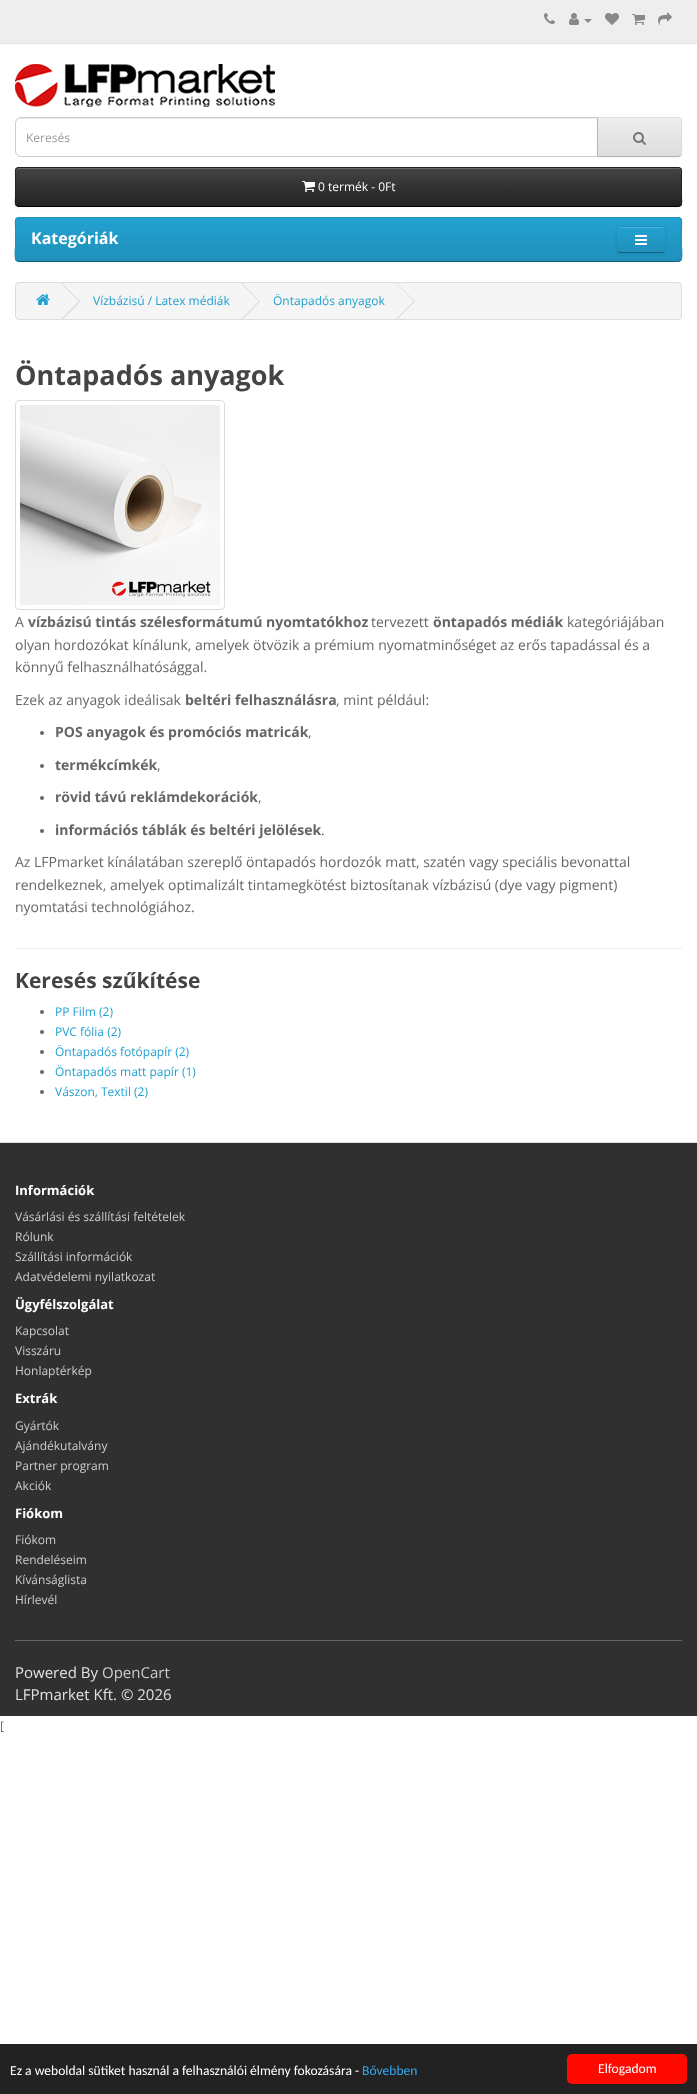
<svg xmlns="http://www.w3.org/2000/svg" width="697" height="2094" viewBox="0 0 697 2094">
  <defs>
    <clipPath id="clip1"><path d="M597 117H678C680 117 682 119 682 121V153C682 155 680 157 678 157H597Z"/></clipPath>
    <linearGradient id="g1" gradientUnits="userSpaceOnUse" x1="640" y1="118" x2="640" y2="156"><stop offset="0" stop-color="rgb(238,238,238)"/><stop offset="1" stop-color="rgb(221,221,221)"/></linearGradient>
    <clipPath id="clip2"><rect x="15" y="167" width="667" height="40" rx="4"/></clipPath>
    <linearGradient id="g2" gradientUnits="userSpaceOnUse" x1="349" y1="168" x2="349" y2="206"><stop offset="0" stop-color="rgb(68,68,68)"/><stop offset="1" stop-color="rgb(34,34,34)"/></linearGradient>
    <clipPath id="clip3"><rect x="15" y="217" width="667" height="45" rx="4"/></clipPath>
    <linearGradient id="g3" gradientUnits="userSpaceOnUse" x1="349" y1="218" x2="349" y2="261"><stop offset="0" stop-color="rgb(35,161,209)"/><stop offset="1" stop-color="rgb(31,144,187)"/></linearGradient>
    <clipPath id="clip4"><rect x="616" y="226" width="50" height="27" rx="4"/></clipPath>
    <linearGradient id="g4" gradientUnits="userSpaceOnUse" x1="641" y1="227" x2="641" y2="252"><stop offset="0" stop-color="rgb(35,161,209)"/><stop offset="1" stop-color="rgb(31,144,187)"/></linearGradient>
  </defs>
  <rect width="100%" height="100%" fill="rgb(255,255,255)"/>
  <rect x="0" y="0" width="697" height="43" fill="rgb(238,238,238)"/>
  <rect x="0" y="43" width="697" height="1" fill="rgb(226,226,226)"/>
  <image x="544" y="13" width="11" height="11" href="pic1.png"/>
  <image x="569" y="13" width="10" height="12" href="pic2.png"/>
  <path d="M584 19H592L588 23Z" fill="rgb(136,136,136)"/>
  <image x="605" y="13" width="14" height="12" href="pic3.png"/>
  <image x="632" y="14" width="13" height="11" href="pic4.png"/>
  <image x="658" y="12" width="14" height="13" href="pic5.png"/>
  <image x="15" y="64" width="260" height="43" href="pic6.png"/>
  <path d="M21 119H597V118H21C18 118 16 121 16 124C16 121 18 119 21 119Z" fill="rgb(236,236,236)"/>
  <path d="M21 117.5H597.5V156.5H21C18 156.5 15.5 154 15.5 151V123C15.5 120 18 117.5 21 117.5Z" fill="none" stroke="rgb(204,204,204)"/>
  <text x="26" y="142" font-family="Open Sans" font-size="12" fill="rgb(153,153,153)">Keresés</text>
  <rect x="597" y="118" width="85" height="40" rx="4" fill="rgba(0,0,0,0.05)" filter="blur(1px)"/>
  <path d="M597 117H678C680 117 682 119 682 121V153C682 155 680 157 678 157H597Z" fill="rgb(231,231,231)"/>
  <g clip-path="url(#clip1)">
    <rect x="598" y="118" width="84" height="38" fill="url(#g1)"/>
  </g>
  <path d="M598 119H678C680 119 681 120 681 122V121C681 119 680 118 678 118H598Z" fill="rgb(241,241,241)"/>
  <path d="M597 117L598 118H679L680 119L681 118L678 117Z" fill="rgb(221,221,221)"/>
  <path d="M682 153V121C682 120 681.5 119 681 118L680 119C681 119 681 120 681 121V153C681 154 681 155 680 155L681 156C681.5 155 682 154 682 153Z" fill="rgb(221,221,221)"/>
  <path d="M678 157L681 156L680 155L679 156H598L597 157Z" fill="rgb(179,179,179)"/>
  <path d="M597 117V157L598 156V118Z" fill="rgb(183,183,183)"/>
  <image x="633" y="132" width="13" height="13" href="pic7.png"/>
  <rect x="15" y="168" width="667" height="40" rx="4" fill="rgba(0,0,0,0.05)" filter="blur(1px)"/>
  <rect x="15" y="167" width="667" height="40" rx="4" fill="rgb(54,54,54)"/>
  <g clip-path="url(#clip2)">
    <rect x="15" y="168" width="667" height="38" fill="url(#g2)"/>
  </g>
  <path d="M19 169H678C680 169 681 170 681 172V171C681 169 680 168 678 168H19C17 168 16 169 16 171V172C16 170 17 169 19 169Z" fill="rgb(105,105,105)"/>
  <path d="M680.5 205.5L678 206.5H19L16.5 205.5" fill="none" stroke="rgb(0,0,0)"/>
  <path d="M16.5 205.5C14.5 203.5 15.5 199.5 15.5 197.5V170.5C15.5 169 17 167.5 18.5 167.5H678.5C680 167.5 681.5 169 681.5 170.5V197.5C681.5 199.5 682.5 203.5 680.5 205.5" fill="none" stroke="rgb(34,34,34)"/>
  <image x="302" y="181" width="13" height="11" href="pic8.png"/>
  <text x="318" y="191" font-family="Open Sans" font-size="12" fill="rgb(255,255,255)">0 termék - 0Ft</text>
  <rect x="15" y="217" width="667" height="45" rx="4" fill="rgb(34,154,200)"/>
  <g clip-path="url(#clip3)">
    <rect x="15" y="218" width="667" height="43" fill="url(#g3)"/>
  </g>
  <path d="M680.5 260.5L678 261.5H19L16.5 260.5" fill="none" stroke="rgb(20,94,122)"/>
  <path d="M16.5 260.5C14 258 15.5 248.5 15.5 245.5V227C15.5 224.5 14 218 18.5 217.5H678.5C683 218 681.5 224.5 681.5 227V245.5C681.5 248.5 683 258 680.5 260.5" fill="none" stroke="rgb(31,144,187)"/>
  <text x="31" y="244" font-family="Open Sans" font-size="16" font-weight="bold" fill="rgb(255,255,255)">Kategóriák</text>
  <rect x="616" y="227" width="50" height="27" rx="4" fill="rgba(0,0,0,0.05)" filter="blur(1px)"/>
  <rect x="616" y="226" width="50" height="27" rx="4" fill="rgb(34,154,200)"/>
  <g clip-path="url(#clip4)">
    <rect x="616" y="227" width="50" height="25" fill="url(#g4)"/>
  </g>
  <path d="M620 228H662C664 228 665 229 665 231C665 225 659 227 655 227H627C623 227 617 225 617 231C617 229 618 228 620 228Z" fill="rgb(79,180,218)"/>
  <path d="M664.5 251.5C664 252 663 252.5 662 252.5H620C619 252.5 618 252 617.5 251.5" fill="none" stroke="rgb(20,94,122)"/>
  <path d="M617.5 251.5C615.5 249.5 616.5 242 616.5 239.5C616.5 226.5 614.5 226.5 627 226.5H655C667.5 226.5 665.5 226.5 665.5 239.5C665.5 242 666.5 249.5 664.5 251.5" fill="none" stroke="rgb(31,144,187)"/>
  <image x="635" y="235" width="12" height="10" href="pic9.png"/>
  <rect x="15.5" y="282.5" width="666" height="37" rx="3.5" fill="rgb(245,245,245)" stroke="rgb(221,221,221)"/>
  <image x="36" y="294" width="14" height="11" href="pic10.png"/>
  <path d="M61 283.5L62 283L80.5 301.5L79.5 302Z" fill="rgb(221,221,221)"/>
  <path d="M61 319L79.5 300.5L80.5 301.5L62 320Z" fill="rgb(221,221,221)"/>
  <text x="93" y="305" font-family="Open Sans" font-size="12" fill="rgb(35,161,209)">Vízbázisú / Latex médiák</text>
  <path d="M241 283.5L242 283L260 301.5L259.5 302Z" fill="rgb(221,221,221)"/>
  <path d="M241 319L259.5 300.5L260 301.5L242 320Z" fill="rgb(221,221,221)"/>
  <text x="273" y="305" font-family="Open Sans" font-size="12" fill="rgb(35,161,209)">Öntapadós anyagok</text>
  <path d="M396 283.5L396.5 283L415 301.5L414.5 302Z" fill="rgb(221,221,221)"/>
  <path d="M396 319L414.5 300.5L415 301.5L396.5 320Z" fill="rgb(221,221,221)"/>
  <text x="15" y="385" font-family="Open Sans" font-size="27" font-weight="bold" fill="rgb(68,68,68)">Öntapadós anyagok</text>
  <rect x="15.5" y="400.5" width="209" height="209" rx="3.5" fill="none" stroke="rgb(221,221,221)"/>
  <image x="20" y="405" width="200" height="200" href="pic11.png"/>
  <text x="15" y="627" font-family="Open Sans" font-size="14" fill="rgb(102,102,102)">A</text>
  <text x="28" y="627" font-family="Open Sans" font-size="14" font-weight="bold" fill="rgb(102,102,102)">vízbázisú tintás szélesformátumú nyomtatókhoz</text>
  <text x="371" y="627" font-family="Open Sans" font-size="14" fill="rgb(102,102,102)">tervezett</text>
  <text x="433" y="627" font-family="Open Sans" font-size="14" font-weight="bold" fill="rgb(102,102,102)">öntapadós médiák</text>
  <g font-family="Open Sans" font-size="14" fill="rgb(102,102,102)">
    <text x="567" y="627">kategóriájában</text>
    <text>
      <tspan x="15" y="650">olyan hordozókat kínálunk, amelyek ötvözik a prémium nyomatminőséget az erős tapadással és a</tspan>
      <tspan x="15" y="672">könnyű felhasználhatósággal.</tspan>
    </text>
    <text x="15" y="705">Ezek az anyagok ideálisak</text>
  </g>
  <text x="185" y="705" font-family="Open Sans" font-size="14" font-weight="bold" fill="rgb(102,102,102)">beltéri felhasználásra</text>
  <text x="336" y="705" font-family="Open Sans" font-size="14" fill="rgb(102,102,102)">, mint például:</text>
  <circle cx="42" cy="733" r="2" fill="rgb(102,102,102)"/>
  <text x="55" y="737" font-family="Open Sans" font-size="14" font-weight="bold" fill="rgb(102,102,102)">POS anyagok és promóciós matricák</text>
  <text x="308" y="737" font-family="Open Sans" font-size="14" fill="rgb(102,102,102)">,</text>
  <circle cx="42" cy="766" r="2" fill="rgb(102,102,102)"/>
  <text x="55" y="770" font-family="Open Sans" font-size="14" font-weight="bold" fill="rgb(102,102,102)">termékcímkék</text>
  <text x="157" y="770" font-family="Open Sans" font-size="14" fill="rgb(102,102,102)">,</text>
  <circle cx="42" cy="798" r="2" fill="rgb(102,102,102)"/>
  <text x="55" y="802" font-family="Open Sans" font-size="14" font-weight="bold" fill="rgb(102,102,102)">rövid távú reklámdekorációk</text>
  <text x="258" y="802" font-family="Open Sans" font-size="14" fill="rgb(102,102,102)">,</text>
  <circle cx="42" cy="831" r="2" fill="rgb(102,102,102)"/>
  <text x="55" y="835" font-family="Open Sans" font-size="14" font-weight="bold" fill="rgb(102,102,102)">információs táblák és beltéri jelölések</text>
  <g font-family="Open Sans" font-size="14" fill="rgb(102,102,102)">
    <text x="321" y="835">.</text>
    <text>
      <tspan x="15" y="867">Az LFPmarket kínálatában szereplő öntapadós hordozók matt, szatén vagy speciális bevonattal</tspan>
      <tspan x="15" y="890">rendelkeznek, amelyek optimalizált tintamegkötést biztosítanak vízbázisú (dye vagy pigment)</tspan>
      <tspan x="15" y="912">nyomtatási technológiához.</tspan>
    </text>
  </g>
  <rect x="15" y="948" width="667" height="1" fill="rgb(238,238,238)"/>
  <text x="15" y="988" font-family="Open Sans" font-size="21" font-weight="bold" fill="rgb(68,68,68)">Keresés szűkítése</text>
  <circle cx="42" cy="1012" r="2" fill="rgb(102,102,102)"/>
  <text x="55" y="1016" font-family="Open Sans" font-size="12" fill="rgb(35,161,209)">PP Film (2)</text>
  <circle cx="42" cy="1032" r="2" fill="rgb(102,102,102)"/>
  <text x="55" y="1036" font-family="Open Sans" font-size="12" fill="rgb(35,161,209)">PVC fólia (2)</text>
  <circle cx="42" cy="1052" r="2" fill="rgb(102,102,102)"/>
  <text x="55" y="1056" font-family="Open Sans" font-size="12" fill="rgb(35,161,209)">Öntapadós fotópapír (2)</text>
  <circle cx="42" cy="1072" r="2" fill="rgb(102,102,102)"/>
  <text x="55" y="1076" font-family="Open Sans" font-size="12" fill="rgb(35,161,209)">Öntapadós matt papír (1)</text>
  <circle cx="42" cy="1092" r="2" fill="rgb(102,102,102)"/>
  <text x="55" y="1096" font-family="Open Sans" font-size="12" fill="rgb(35,161,209)">Vászon, Textil (2)</text>
  <rect x="0" y="1143" width="697" height="573" fill="rgb(48,48,48)"/>
  <rect x="0" y="1142" width="697" height="1" fill="rgb(221,221,221)"/>
  <text x="15" y="1195" font-family="Open Sans" font-size="13" font-weight="bold" fill="rgb(255,255,255)">Információk</text>
  <g font-family="Open Sans" font-size="12" fill="rgb(204,204,204)">
    <text>
      <tspan x="15" y="1221">Vásárlási és szállítási feltételek</tspan>
      <tspan x="15" y="1241">Rólunk</tspan>
      <tspan x="15" y="1261">Szállítási információk</tspan>
      <tspan x="15" y="1281">Adatvédelemi nyilatkozat</tspan>
    </text>
  </g>
  <text x="15" y="1309" font-family="Open Sans" font-size="13" font-weight="bold" fill="rgb(255,255,255)">Ügyfélszolgálat</text>
  <g font-family="Open Sans" font-size="12" fill="rgb(204,204,204)">
    <text>
      <tspan x="15" y="1335">Kapcsolat</tspan>
      <tspan x="15" y="1355">Visszáru</tspan>
      <tspan x="15" y="1375">Honlaptérkép</tspan>
    </text>
  </g>
  <text x="15" y="1403" font-family="Open Sans" font-size="13" font-weight="bold" fill="rgb(255,255,255)">Extrák</text>
  <g font-family="Open Sans" font-size="12" fill="rgb(204,204,204)">
    <text>
      <tspan x="15" y="1430">Gyártók</tspan>
      <tspan x="15" y="1450">Ajándékutalvány</tspan>
      <tspan x="15" y="1470">Partner program</tspan>
      <tspan x="15" y="1490">Akciók</tspan>
    </text>
  </g>
  <text x="15" y="1518" font-family="Open Sans" font-size="13" font-weight="bold" fill="rgb(255,255,255)">Fiókom</text>
  <g font-family="Open Sans" font-size="12" fill="rgb(204,204,204)">
    <text>
      <tspan x="15" y="1544">Fiókom</tspan>
      <tspan x="15" y="1564">Rendeléseim</tspan>
      <tspan x="15" y="1584">Kívánságlista</tspan>
      <tspan x="15" y="1604">Hírlevél</tspan>
    </text>
  </g>
  <rect x="15" y="1640" width="667" height="1" fill="rgb(102,102,102)"/>
  <text x="15" y="1678" font-family="Open Sans" font-size="15" fill="rgb(226,226,226)">Powered By</text>
  <text x="102" y="1678" font-family="Open Sans" font-size="15" fill="rgb(204,204,204)">OpenCart</text>
  <text x="15" y="1700" font-family="Open Sans" font-size="15" fill="rgb(226,226,226)">LFPmarket Kft. © 2026</text>
  <text x="0" y="1730" font-family="Open Sans" font-size="12" fill="rgb(102,102,102)">[</text>
  <rect x="0" y="2044" width="697" height="50" fill="rgb(34,34,34)"/>
  <text x="10" y="2075" font-family="Carlito" font-size="13.6" fill="rgb(255,255,255)">Ez a weboldal sütiket használ a felhasználói élmény fokozására -</text>
  <text x="362" y="2075" font-family="Carlito" font-size="13.6" fill="rgb(49,168,240)">Bővebben</text>
  <rect x="567" y="2054" width="120" height="30" rx="5" fill="rgb(255,10,0)"/>
  <text x="598" y="2073" font-family="Carlito" font-size="13.6" fill="rgb(255,255,255)">Elfogadom</text>
</svg>
